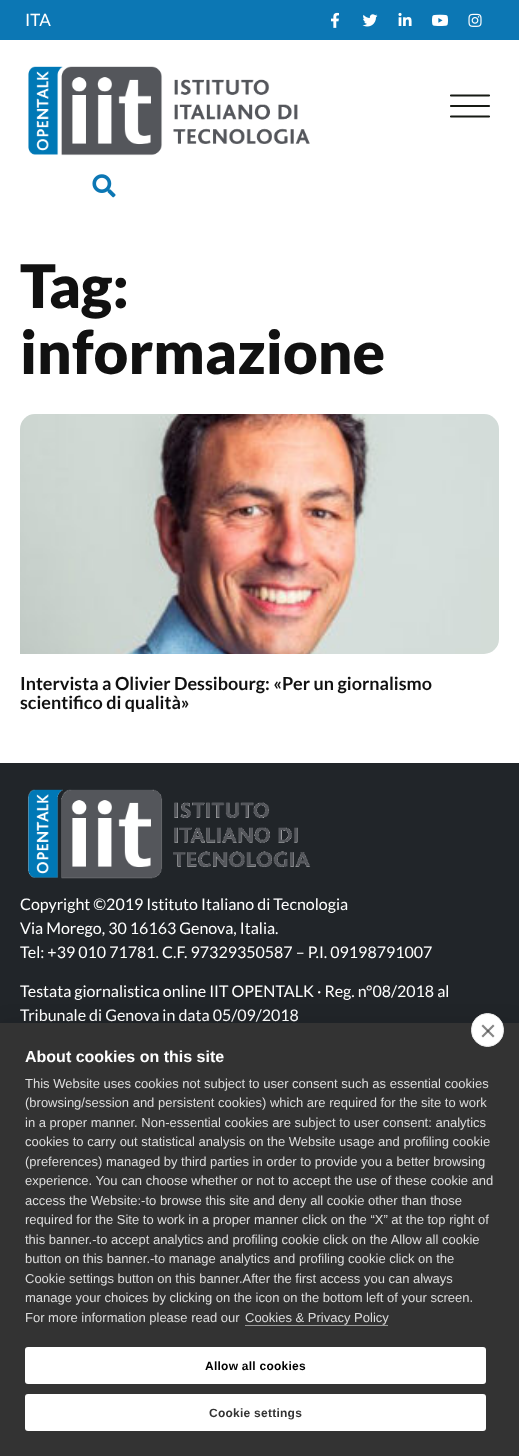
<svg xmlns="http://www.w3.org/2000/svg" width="519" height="1456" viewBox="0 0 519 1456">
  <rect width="100%" height="100%" fill="rgb(255,255,255)"/>
  <rect x="0" y="0" width="519" height="40" fill="rgb(12,119,180)"/>
  <text x="25" y="26" font-family="Lato" font-size="17" fill="rgb(255,255,255)">ITA</text>
  <image x="331" y="12" width="8" height="16" href="pic1.png"/>
  <image x="362" y="14" width="16" height="13" href="pic2.png"/>
  <image x="398" y="12" width="14" height="14" href="pic3.png"/>
  <image x="432" y="14" width="16" height="12" href="pic4.png"/>
  <image x="468" y="13" width="14" height="14" href="pic5.png"/>
  <image x="28" y="66" width="282" height="90" href="pic6.png"/>
  <path d="M489 95.5H451M489 106H451M489 116.5H451" fill="none" stroke="rgb(22,26,20)" stroke-width="2.2" stroke-linecap="round"/>
  <image x="92" y="174" width="24" height="24" href="pic7.png"/>
  <g font-family="Lato" font-size="60" font-weight="900" fill="rgb(17,17,17)">
    <text>
      <tspan x="20" y="308">Tag:</tspan>
      <tspan x="20" y="374">informazione</tspan>
    </text>
  </g>
  <image x="20" y="414" width="479" height="240" href="pic8.png"/>
  <g font-family="Lato" font-size="18" font-weight="bold" fill="rgb(17,17,17)">
    <text>
      <tspan x="20" y="690">Intervista a Olivier Dessibourg: «Per un giornalismo</tspan>
      <tspan x="20" y="709">scientifico di qualità»</tspan>
    </text>
  </g>
  <rect x="0" y="763" width="519" height="260" fill="rgb(33,37,41)"/>
  <image x="28" y="789" width="283" height="90" href="pic9.png"/>
  <g font-family="Lato" font-size="16" fill="rgb(255,255,255)">
    <text>
      <tspan x="20" y="910">Copyright ©2019 Istituto Italiano di Tecnologia</tspan>
      <tspan x="20" y="934">Via Morego, 30 16163 Genova, Italia.</tspan>
      <tspan x="20" y="958">Tel: +39 010 71781. C.F. 97329350587 – P.I. 09198791007</tspan>
    </text>
    <text>
      <tspan x="20" y="997">Testata giornalistica online IIT OPENTALK · Reg. n°08/2018 al</tspan>
      <tspan x="20" y="1021">Tribunale di Genova in data 05/09/2018</tspan>
    </text>
  </g>
  <rect x="0" y="1023" width="519" height="433" fill="rgba(0,0,0,0.1)" filter="blur(10px)"/>
  <rect x="0" y="1023" width="519" height="433" fill="rgb(51,51,51)"/>
  <rect x="471.5" y="1013.5" width="32" height="33" rx="16" fill="rgb(255,255,255)" stroke="rgb(238,238,238)"/>
  <path d="M481.5 1036L493 1024.5L494.5 1026L483 1037.5Z" fill="rgb(133,133,133)"/>
  <path d="M483 1024.5L494.5 1036L493 1037.5L481.5 1026Z" fill="rgba(51,51,51,0.6)"/>
  <text x="25" y="1062" font-family="Liberation Sans" font-size="16" font-weight="bold" fill="rgb(255,255,255)">About cookies on this site</text>
  <g font-family="Liberation Sans" font-size="13" fill="rgb(221,221,221)">
    <text>
      <tspan x="25" y="1088">This Website uses cookies not subject to user consent such as essential cookies</tspan>
      <tspan x="25" y="1107">(browsing/session and persistent cookies) which are required for the site to work</tspan>
      <tspan x="25" y="1127">in a proper manner. Non-essential cookies are subject to user consent: analytics</tspan>
      <tspan x="25" y="1146">cookies to carry out statistical analysis on the Website usage and profiling cookie</tspan>
      <tspan x="25" y="1166">(preferences) managed by third parties in order to provide you a better browsing</tspan>
      <tspan x="25" y="1185">experience. You can choose whether or not to accept the use of these cookie and</tspan>
      <tspan x="25" y="1205">access the Website:-to browse this site and deny all cookie other than those</tspan>
      <tspan x="25" y="1224">required for the Site to work in a proper manner click on the “X” at the top right of</tspan>
      <tspan x="25" y="1244">this banner.-to accept analytics and profiling cookie click on the Allow all cookie</tspan>
      <tspan x="25" y="1263">button on this banner.-to manage analytics and profiling cookie click on the</tspan>
      <tspan x="25" y="1283">Cookie settings button on this banner.After the first access you can always</tspan>
      <tspan x="25" y="1302">manage your choices by clicking on the icon on the bottom left of your screen.</tspan>
      <tspan x="25" y="1322">For more information please read our</tspan>
    </text>
    <text x="245" y="1322">Cookies &amp; Privacy Policy</text>
  </g>
  <rect x="245" y="1325" width="143" height="1" fill="rgb(153,153,153)"/>
  <rect x="25" y="1347" width="461" height="37" rx="3" fill="rgb(255,255,255)"/>
  <text x="205" y="1370" font-family="Liberation Sans" font-size="12" font-weight="bold" letter-spacing="0.25" fill="rgb(0,0,0)">Allow all cookies</text>
  <rect x="25" y="1394" width="461" height="37" rx="3" fill="rgb(255,255,255)"/>
  <text x="209" y="1417" font-family="Liberation Sans" font-size="12" font-weight="bold" letter-spacing="0.25" fill="rgb(51,51,51)">Cookie settings</text>
</svg>
